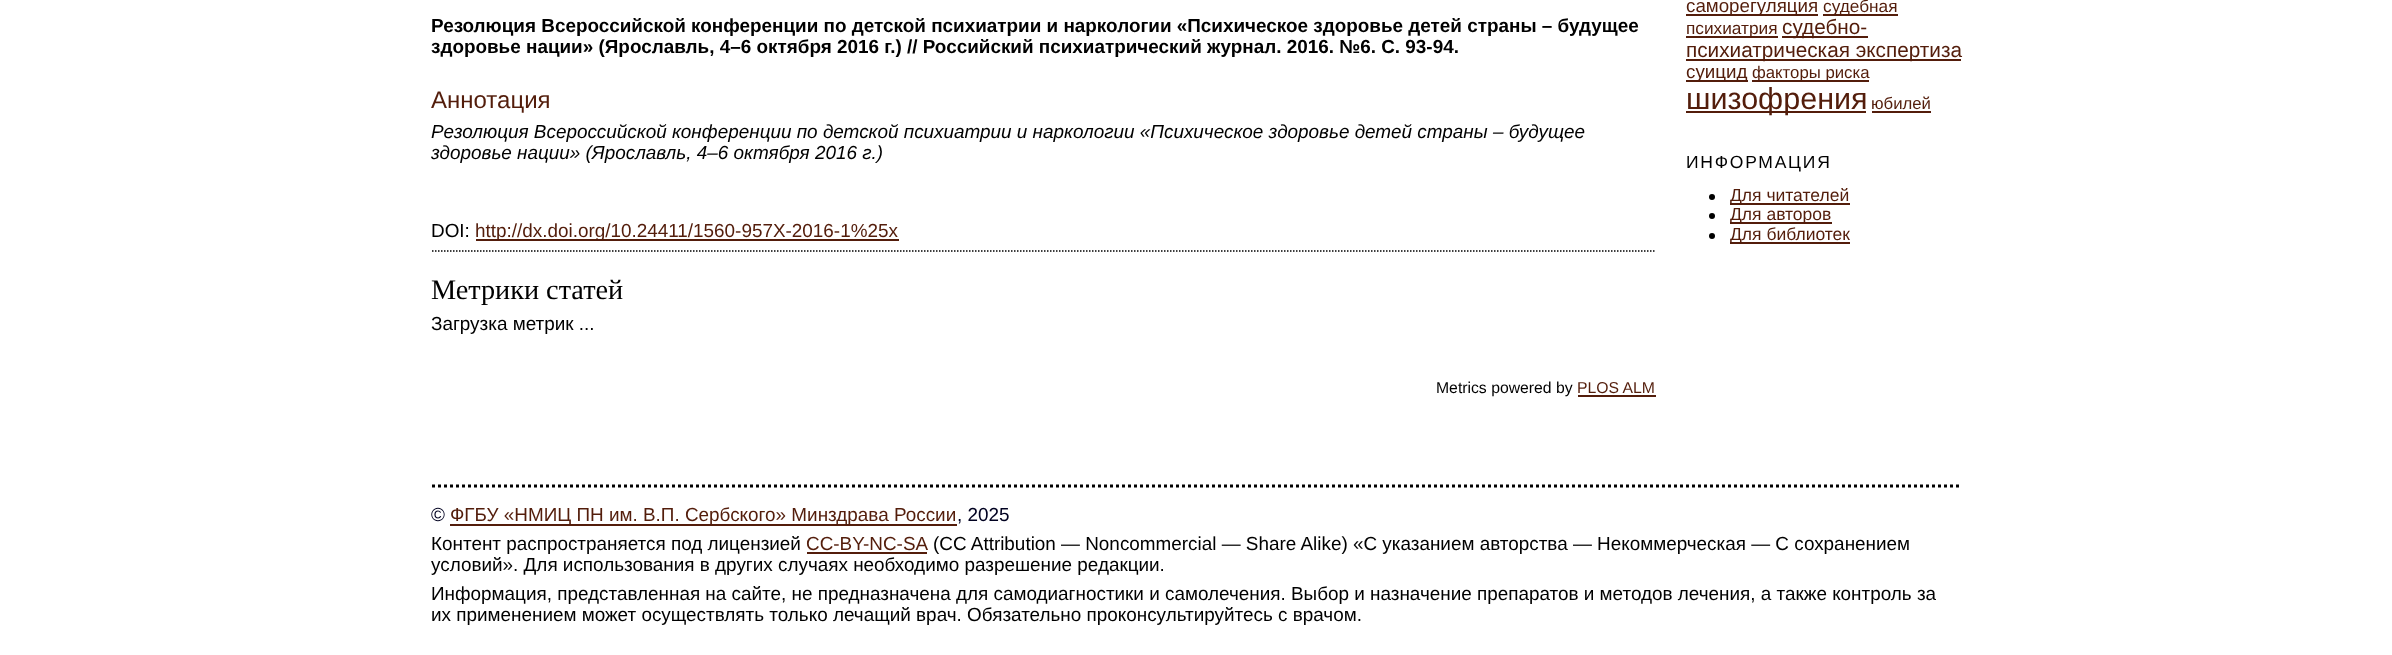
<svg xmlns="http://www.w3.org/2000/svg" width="2392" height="655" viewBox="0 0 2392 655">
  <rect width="100%" height="100%" fill="rgb(255,255,255)"/>
  <g font-family="Liberation Sans" font-size="18.9" font-weight="bold" fill="rgb(0,0,0)">
    <text>
      <tspan x="431" y="32">Резолюция Всероссийской конференции по детской психиатрии и наркологии «Психическое здоровье детей страны – будущее</tspan>
      <tspan x="431" y="53">здоровье нации» (Ярославль, 4–6 октября 2016 г.) // Российский психиатрический журнал. 2016. №6. С. 93-94.</tspan>
    </text>
  </g>
  <text x="431" y="108" font-family="Liberation Sans" font-size="24" fill="rgb(83,29,11)">Аннотация</text>
  <g font-family="Liberation Sans" font-size="18.9" font-style="italic" fill="rgb(0,0,0)">
    <text>
      <tspan x="431" y="138">Резолюция Всероссийской конференции по детской психиатрии и наркологии «Психическое здоровье детей страны – будущее</tspan>
      <tspan x="431" y="159">здоровье нации» (Ярославль, 4–6 октября 2016 г.)</tspan>
    </text>
  </g>
  <text x="431" y="237" font-family="Liberation Sans" font-size="18.9" fill="rgb(0,0,0)">DOI:</text>
  <rect x="476" y="239" width="423" height="2" fill="rgb(83,29,11)"/>
  <text x="475" y="237" font-family="Liberation Sans" font-size="18.9" fill="rgb(83,29,11)">http://dx.doi.org/10.24411/1560-957X-2016-1%25x</text>
  <path d="M432 251H1656" fill="none" stroke="rgb(0,0,0)" stroke-width="1.5" stroke-dasharray="1.5 1.5"/>
  <text x="431" y="299" font-family="Liberation Serif" font-size="28.25" fill="rgb(0,0,0)">Метрики статей</text>
  <text x="431" y="330" font-family="Liberation Sans" font-size="18.9" fill="rgb(0,0,0)">Загрузка метрик ...</text>
  <text x="1436" y="393" font-family="Liberation Sans" font-size="15.75" fill="rgb(0,0,0)">Metrics powered by</text>
  <text x="1577" y="393" font-family="Liberation Sans" font-size="15.75" fill="rgb(83,29,11)">PLOS ALM</text>
  <rect x="1578" y="395" width="78" height="2" fill="rgb(83,29,11)"/>
  <rect x="1686" y="14" width="132" height="2" fill="rgb(83,29,11)"/>
  <text x="1686" y="12" font-family="Liberation Sans" font-size="18.75" fill="rgb(83,29,11)">саморегуляция</text>
  <rect x="1823" y="14" width="75" height="2" fill="rgb(83,29,11)"/>
  <text x="1823" y="12" font-family="Liberation Sans" font-size="17.25" fill="rgb(83,29,11)">судебная</text>
  <rect x="1686" y="36" width="92" height="2" fill="rgb(83,29,11)"/>
  <text x="1686" y="34" font-family="Liberation Sans" font-size="17.25" fill="rgb(83,29,11)">психиатрия</text>
  <rect x="1782" y="36" width="86" height="2" fill="rgb(83,29,11)"/>
  <text x="1782" y="34" font-family="Liberation Sans" font-size="20.75" fill="rgb(83,29,11)">судебно-</text>
  <rect x="1686" y="59" width="275" height="2" fill="rgb(83,29,11)"/>
  <text x="1686" y="57" font-family="Liberation Sans" font-size="20.75" fill="rgb(83,29,11)">психиатрическая экспертиза</text>
  <rect x="1686" y="80" width="62" height="2" fill="rgb(83,29,11)"/>
  <text x="1686" y="78" font-family="Liberation Sans" font-size="18.75" fill="rgb(83,29,11)">суицид</text>
  <rect x="1752" y="80" width="117" height="2" fill="rgb(83,29,11)"/>
  <text x="1752" y="78" font-family="Liberation Sans" font-size="16.75" fill="rgb(83,29,11)">факторы риска</text>
  <rect x="1686" y="111" width="180" height="2" fill="rgb(83,29,11)"/>
  <text x="1686" y="109" font-family="Liberation Sans" font-size="30.5" fill="rgb(83,29,11)">шизофрения</text>
  <text x="1871" y="109" font-family="Liberation Sans" font-size="16.75" fill="rgb(83,29,11)">юбилей</text>
  <rect x="1872" y="111" width="59" height="2" fill="rgb(83,29,11)"/>
  <text x="1686" y="168" font-family="Liberation Sans" font-size="17.5" letter-spacing="1.75" fill="rgb(0,0,0)">ИНФОРМАЦИЯ</text>
  <circle cx="1712" cy="197" r="3" fill="rgb(0,0,0)"/>
  <rect x="1730" y="203" width="120" height="2" fill="rgb(83,29,11)"/>
  <text x="1730" y="201" font-family="Liberation Sans" font-size="17.5" fill="rgb(83,29,11)">Для читателей</text>
  <circle cx="1712" cy="216" r="3" fill="rgb(0,0,0)"/>
  <rect x="1730" y="222" width="102" height="2" fill="rgb(83,29,11)"/>
  <text x="1730" y="220" font-family="Liberation Sans" font-size="17.5" fill="rgb(83,29,11)">Для авторов</text>
  <circle cx="1712" cy="236" r="3" fill="rgb(0,0,0)"/>
  <rect x="1730" y="242" width="120" height="2" fill="rgb(83,29,11)"/>
  <text x="1730" y="240" font-family="Liberation Sans" font-size="17.5" fill="rgb(83,29,11)">Для библиотек</text>
  <path d="M432 486H1962" fill="none" stroke="rgb(0,0,0)" stroke-width="3" stroke-dasharray="3 3"/>
  <text x="431" y="521" font-family="Liberation Sans" font-size="18.9" fill="rgb(0,1,32)">©</text>
  <rect x="450" y="524" width="507" height="2" fill="rgb(83,29,11)"/>
  <text x="450" y="521" font-family="Liberation Sans" font-size="18.9" fill="rgb(83,29,11)">ФГБУ «НМИЦ ПН им. В.П. Сербского» Минздрава России</text>
  <text x="957" y="521" font-family="Liberation Sans" font-size="18.9" fill="rgb(0,1,32)">, 2025</text>
  <text x="431" y="550" font-family="Liberation Sans" font-size="18.9" fill="rgb(0,0,0)">Контент распространяется под лицензией</text>
  <text x="806" y="550" font-family="Liberation Sans" font-size="18.9" fill="rgb(83,29,11)">CC-BY-NC-SA</text>
  <rect x="807" y="552" width="120" height="2" fill="rgb(83,29,11)"/>
  <g font-family="Liberation Sans" font-size="18.9" fill="rgb(0,0,0)">
    <text x="933" y="550">(CC Attribution — Noncommercial — Share Alike) «С указанием авторства — Некоммерческая — С сохранением</text>
    <text>
      <tspan x="431" y="571">условий». Для использования в других случаях необходимо разрешение редакции.</tspan>
      <tspan x="431" y="600">Информация, представленная на сайте, не предназначена для самодиагностики и самолечения. Выбор и назначение препаратов и методов лечения, а также контроль за</tspan>
      <tspan x="431" y="621">их применением может осуществлять только лечащий врач. Обязательно проконсультируйтесь с врачом.</tspan>
    </text>
  </g>
</svg>
